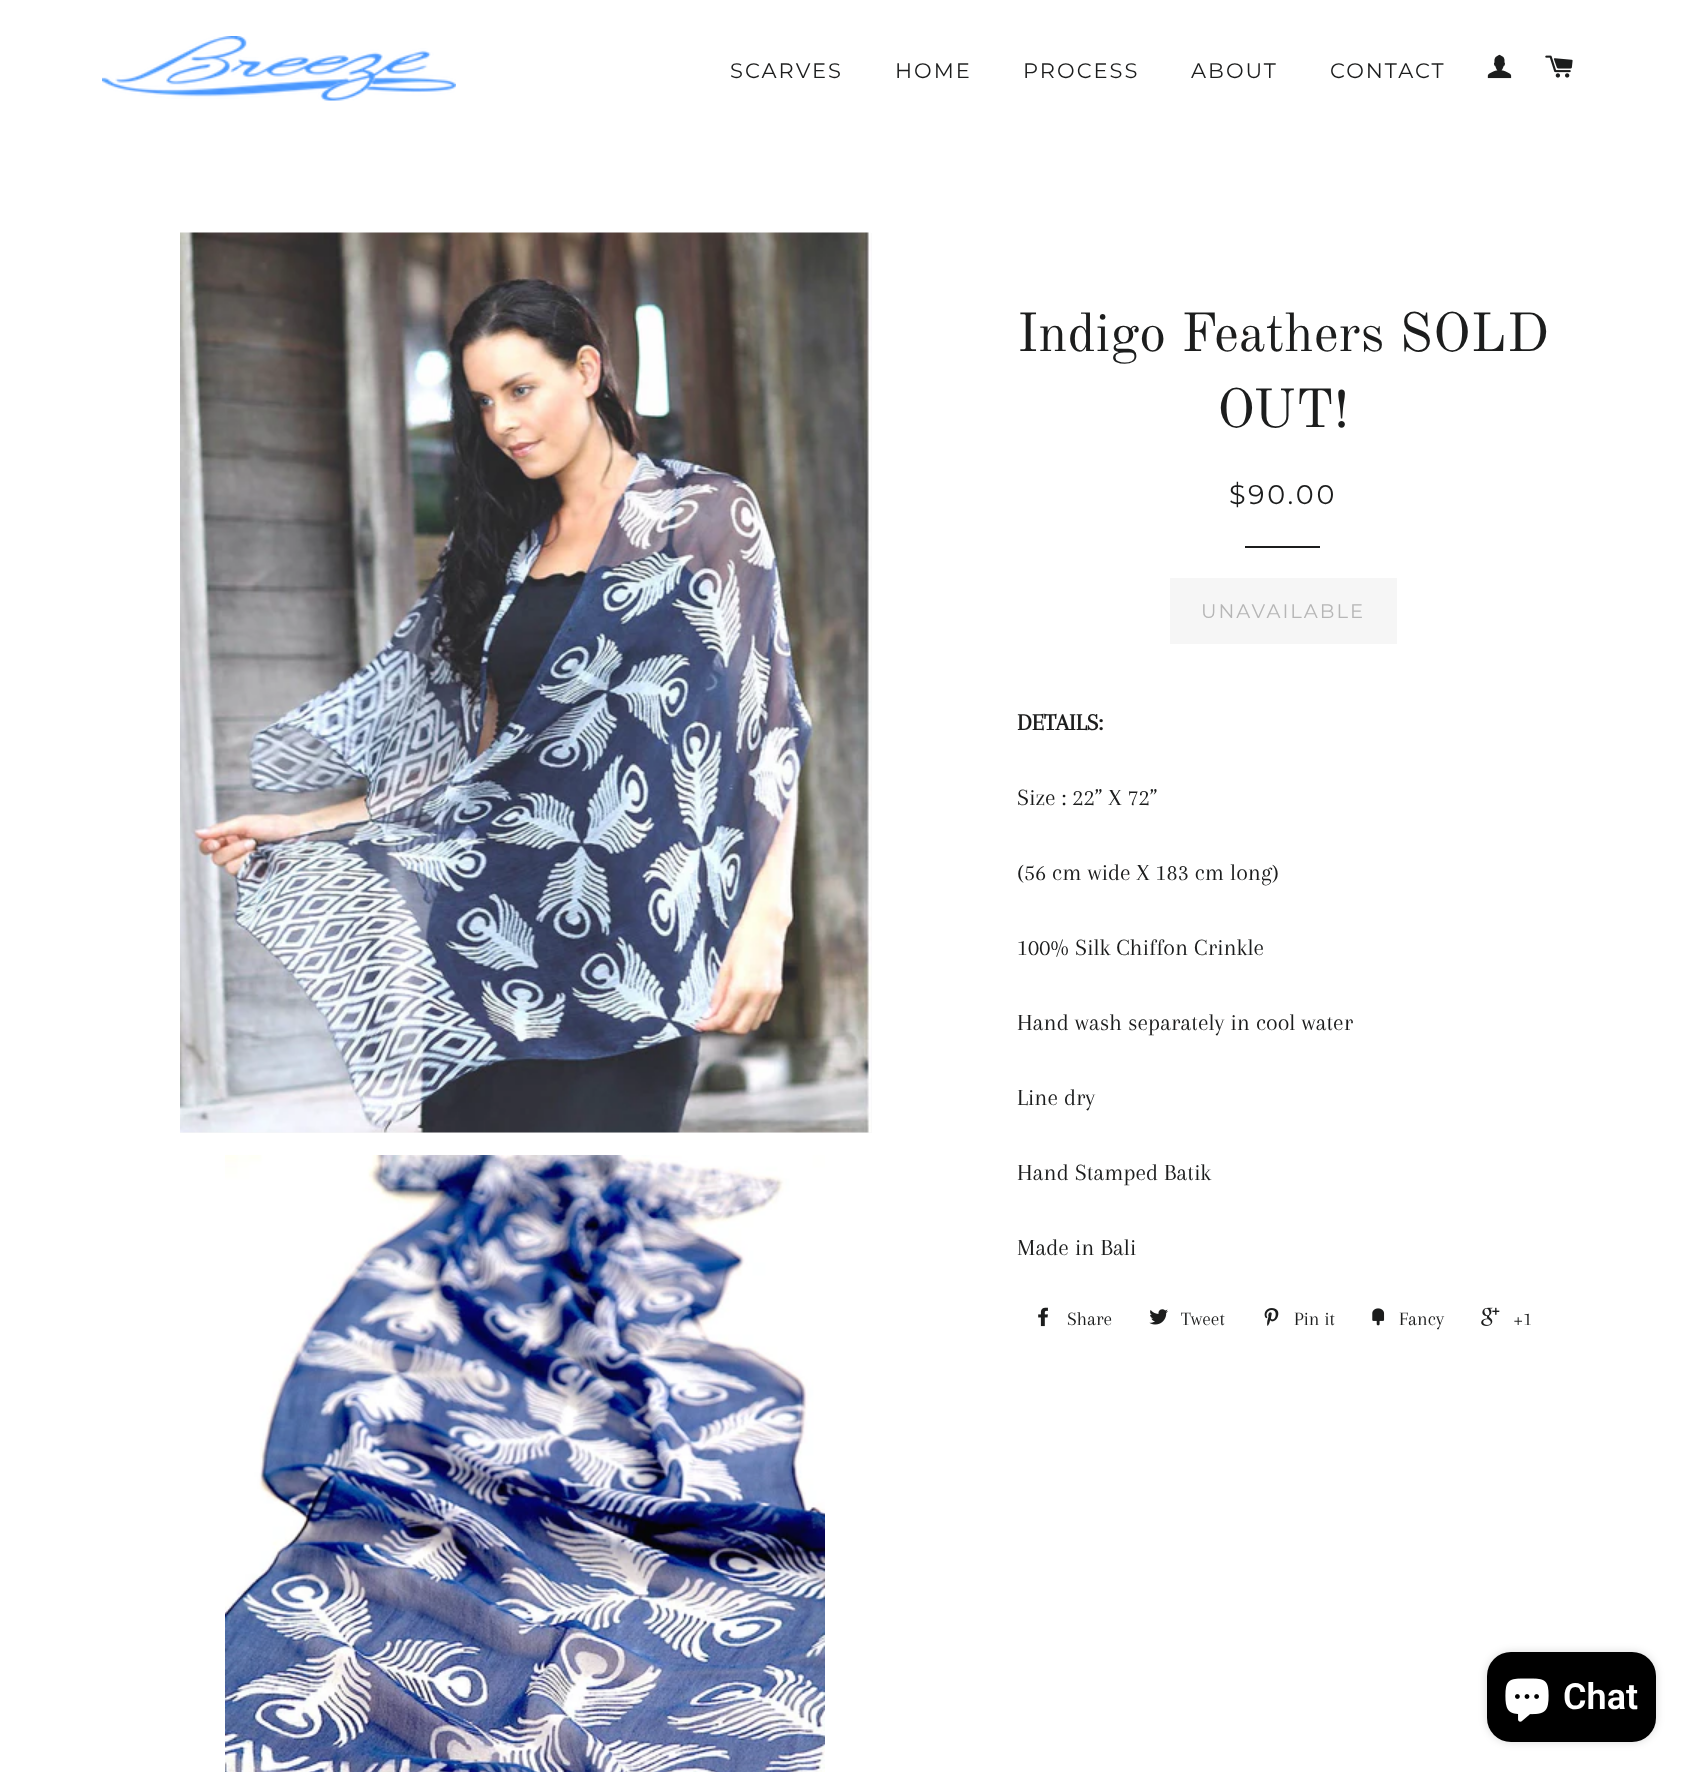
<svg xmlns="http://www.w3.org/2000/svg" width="1688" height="1772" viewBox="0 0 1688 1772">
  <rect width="100%" height="100%" fill="rgb(255,255,255)"/>
  <image x="102" y="36" width="354" height="65" href="pic1.png"/>
  <g font-family="Montserrat" font-size="21" font-weight="100" letter-spacing="2" fill="rgb(28,29,29)">
    <text x="730" y="78">SCARVES</text>
    <text x="895" y="78">HOME</text>
    <text x="1023" y="78">PROCESS</text>
    <text x="1191" y="78">ABOUT</text>
    <text x="1330" y="78">CONTACT</text>
  </g>
  <image x="1487" y="54" width="25" height="25" href="pic2.png"/>
  <image x="1545" y="55" width="28" height="23" href="pic3.png"/>
  <rect x="180" y="233" width="692" height="900" fill="rgb(247,247,247)"/>
  <image x="180" y="232" width="692" height="901" href="pic4.png"/>
  <image x="225" y="1155" width="600" height="617" href="pic5.png"/>
  <g font-family="Old Standard TT" font-size="54" fill="rgb(28,29,29)">
    <text x="1017" y="351">Indigo Feathers SOLD</text>
    <text x="1217" y="427">OUT!</text>
  </g>
  <text x="1229" y="504" font-family="Montserrat" font-size="27" font-weight="100" letter-spacing="2.75" fill="rgb(28,29,29)">$90.00</text>
  <rect x="1245" y="546" width="75" height="2" fill="rgb(28,29,29)"/>
  <rect x="1170" y="578" width="227" height="66" fill="rgb(246,246,246)"/>
  <text x="1201" y="618" font-family="Montserrat" font-size="19.5" font-weight="100" letter-spacing="2" fill="rgb(182,182,182)">UNAVAILABLE</text>
  <text x="1017" y="730" font-family="Arapey" font-size="24" font-weight="bold" fill="rgb(28,29,29)">DETAILS:</text>
  <g font-family="Arapey" font-size="24" fill="rgb(28,29,29)">
    <text x="1017" y="805">Size : 22” X 72”</text>
    <text x="1017" y="880">(56 cm wide X 183 cm long)</text>
    <text x="1017" y="955">100% Silk Chiffon Crinkle</text>
    <text x="1017" y="1030">Hand wash separately in cool water</text>
    <text x="1017" y="1105">Line dry</text>
    <text x="1017" y="1180">Hand Stamped Batik</text>
    <text x="1017" y="1255">Made in Bali</text>
  </g>
  <image x="1038" y="1307" width="10" height="20" href="pic6.png"/>
  <text x="1067" y="1325" font-family="Arapey" font-size="19.5" fill="rgb(28,29,29)">Share</text>
  <image x="1149" y="1309" width="19" height="16" href="pic7.png"/>
  <text x="1181" y="1325" font-family="Arapey" font-size="19.5" fill="rgb(28,29,29)">Tweet</text>
  <image x="1264" y="1308" width="15" height="18" href="pic8.png"/>
  <text x="1294" y="1325" font-family="Arapey" font-size="19.5" fill="rgb(28,29,29)">Pin it</text>
  <image x="1372" y="1308" width="13" height="18" href="pic9.png"/>
  <text x="1399" y="1325" font-family="Arapey" font-size="19.5" fill="rgb(28,29,29)">Fancy</text>
  <image x="1481" y="1307" width="19" height="19" href="pic10.png"/>
  <text x="1513" y="1325" font-family="Arapey" font-size="19.5" fill="rgb(28,29,29)">+1</text>
  <rect x="1487" y="1652" width="169" height="90" rx="24" fill="rgba(0,0,0,0.15)" filter="blur(4px)"/>
  <rect x="1487" y="1652" width="169" height="90" rx="24" fill="rgb(0,0,0)"/>
  <image x="1505" y="1678" width="44" height="44" href="pic11.png"/>
  <text x="1563" y="1709" font-family="Roboto" font-size="36" font-weight="600" fill="rgb(255,255,255)">Chat</text>
</svg>
